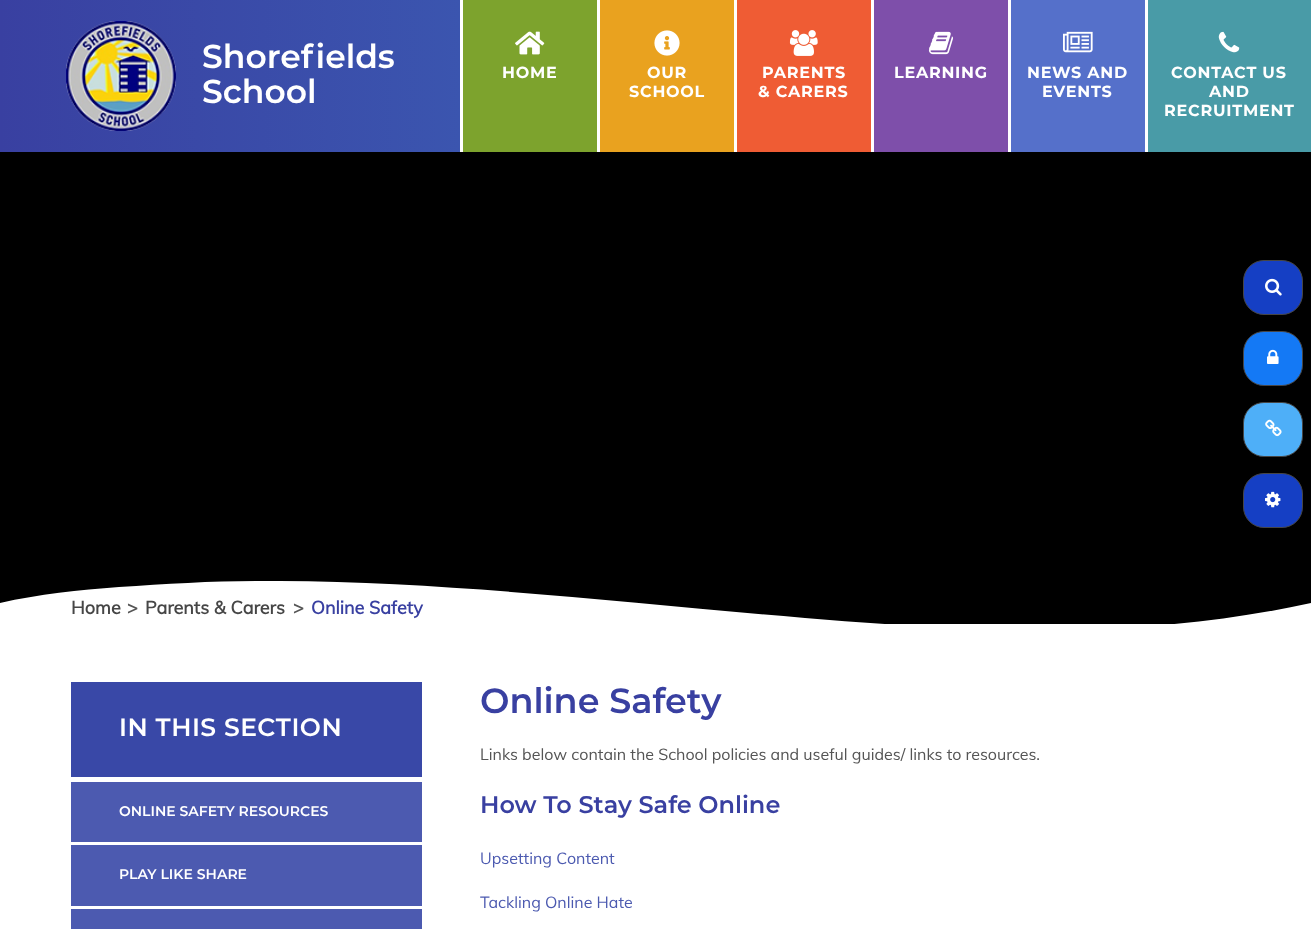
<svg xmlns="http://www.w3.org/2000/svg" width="1311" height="929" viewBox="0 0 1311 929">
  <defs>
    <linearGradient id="g1" gradientUnits="userSpaceOnUse" x1="0" y1="76" x2="460" y2="76"><stop offset="0" stop-color="rgb(57,64,161)"/><stop offset="1" stop-color="rgb(59,85,175)"/></linearGradient>
    <clipPath id="clip1"><rect x="0" y="581" width="1311" height="43"/></clipPath>
  </defs>
  <rect width="100%" height="100%" fill="rgb(255,255,255)"/>
  <rect x="0" y="0" width="460" height="152" fill="url(#g1)"/>
  <image x="66" y="21" width="110" height="110" href="pic1.png"/>
  <g font-family="Montserrat" font-size="33" font-weight="600" fill="rgb(255,255,255)">
    <text>
      <tspan x="202" y="68">Shorefields</tspan>
      <tspan x="202" y="103">School</tspan>
    </text>
  </g>
  <rect x="463" y="0" width="134" height="152" fill="rgb(125,163,45)"/>
  <image x="515" y="31" width="30" height="24" href="pic2.png"/>
  <text x="502" y="78" font-family="Montserrat" font-size="16" font-weight="bold" letter-spacing="0.75" fill="rgb(255,255,255)">HOME</text>
  <rect x="600" y="0" width="134" height="152" fill="rgb(233,162,31)"/>
  <image x="654" y="30" width="26" height="26" href="pic3.png"/>
  <g font-family="Montserrat" font-size="16" font-weight="bold" letter-spacing="0.75" fill="rgb(255,255,255)">
    <text x="647" y="78">OUR</text>
    <text x="629" y="97">SCHOOL</text>
  </g>
  <rect x="737" y="0" width="134" height="152" fill="rgb(239,92,52)"/>
  <image x="789" y="30" width="29" height="26" href="pic4.png"/>
  <g font-family="Montserrat" font-size="16" font-weight="bold" letter-spacing="0.75" fill="rgb(255,255,255)">
    <text x="762" y="78">PARENTS</text>
    <text x="758" y="97">&amp; CARERS</text>
  </g>
  <rect x="874" y="0" width="134" height="152" fill="rgb(126,79,170)"/>
  <image x="928" y="31" width="25" height="24" href="pic5.png"/>
  <text x="894" y="78" font-family="Montserrat" font-size="16" font-weight="bold" letter-spacing="0.75" fill="rgb(255,255,255)">LEARNING</text>
  <rect x="1011" y="0" width="134" height="152" fill="rgb(85,112,202)"/>
  <image x="1063" y="31" width="30" height="22" href="pic6.png"/>
  <g font-family="Montserrat" font-size="16" font-weight="bold" letter-spacing="0.75" fill="rgb(255,255,255)">
    <text x="1027" y="78">NEWS AND</text>
    <text x="1042" y="97">EVENTS</text>
  </g>
  <rect x="1148" y="0" width="163" height="152" fill="rgb(73,155,167)"/>
  <image x="1218" y="31" width="22" height="22" href="pic7.png"/>
  <g font-family="Montserrat" font-size="16" font-weight="bold" letter-spacing="0.75" fill="rgb(255,255,255)">
    <text x="1171" y="78">CONTACT US</text>
    <text x="1209" y="97">AND</text>
    <text x="1164" y="116">RECRUITMENT</text>
  </g>
  <rect x="0" y="152" width="1311" height="472" fill="rgb(0,0,0)"/>
  <rect x="1243.5" y="260.5" width="59" height="54" rx="20.5" fill="rgb(21,63,196)" stroke="rgb(70,70,70)"/>
  <image x="1265" y="278" width="17" height="18" href="pic8.png"/>
  <rect x="1243.5" y="331.5" width="59" height="54" rx="20.5" fill="rgb(20,121,245)" stroke="rgb(70,70,70)"/>
  <image x="1267" y="349" width="12" height="15" href="pic9.png"/>
  <rect x="1243.5" y="402.5" width="59" height="54" rx="20.5" fill="rgb(78,175,248)" stroke="rgb(70,70,70)"/>
  <image x="1265" y="419" width="17" height="18" href="pic10.png"/>
  <rect x="1243.5" y="473.5" width="59" height="54" rx="20.5" fill="rgb(21,63,196)" stroke="rgb(70,70,70)"/>
  <image x="1265" y="491" width="16" height="17" href="pic11.png"/>
  <g clip-path="url(#clip1)">
    <path d="M1311 603C1145 640 974 632 805 618C623 603 440 580 256 581C211 581 165 584 119 587C79 590 39 594 0 603V675H1311Z" fill="rgb(255,255,255)"/>
  </g>
  <text x="71" y="614" font-family="Muli" font-size="18" font-weight="bold" fill="rgb(70,70,70)">Home</text>
  <text x="127" y="614" font-family="Muli" font-size="18" font-weight="bold" fill="rgb(85,85,85)">&gt;</text>
  <text x="145" y="614" font-family="Muli" font-size="18" font-weight="bold" fill="rgb(70,70,70)">Parents &amp; Carers</text>
  <text x="293" y="614" font-family="Muli" font-size="18" font-weight="bold" fill="rgb(85,85,85)">&gt;</text>
  <text x="311" y="614" font-family="Muli" font-size="18" font-weight="bold" fill="rgb(57,64,161)">Online Safety</text>
  <rect x="71" y="682" width="351" height="95" fill="rgb(57,72,167)"/>
  <text x="119" y="736" font-family="Montserrat" font-size="25" font-weight="600" letter-spacing="0.5" fill="rgb(255,255,255)">IN THIS SECTION</text>
  <rect x="71" y="782" width="351" height="60" fill="rgb(76,90,176)"/>
  <text x="119" y="816" font-family="Montserrat" font-size="14" font-weight="600" fill="rgb(255,255,255)">ONLINE SAFETY RESOURCES</text>
  <rect x="71" y="845" width="351" height="61" fill="rgb(76,90,176)"/>
  <text x="119" y="879" font-family="Montserrat" font-size="14" font-weight="600" fill="rgb(255,255,255)">PLAY LIKE SHARE</text>
  <rect x="71" y="909" width="351" height="20" fill="rgb(76,90,176)"/>
  <text x="480" y="713" font-family="Montserrat" font-size="35" font-weight="600" fill="rgb(57,64,161)">Online Safety</text>
  <text x="480" y="760" font-family="Muli" font-size="16" fill="rgb(85,85,85)">Links below contain the School policies and useful guides/ links to resources.</text>
  <text x="480" y="813" font-family="Montserrat" font-size="24" font-weight="600" fill="rgb(57,64,161)">How To Stay Safe Online</text>
  <g font-family="Muli" font-size="16" fill="rgb(76,90,176)">
    <text x="480" y="864">Upsetting Content</text>
    <text x="480" y="908">Tackling Online Hate</text>
  </g>
</svg>
